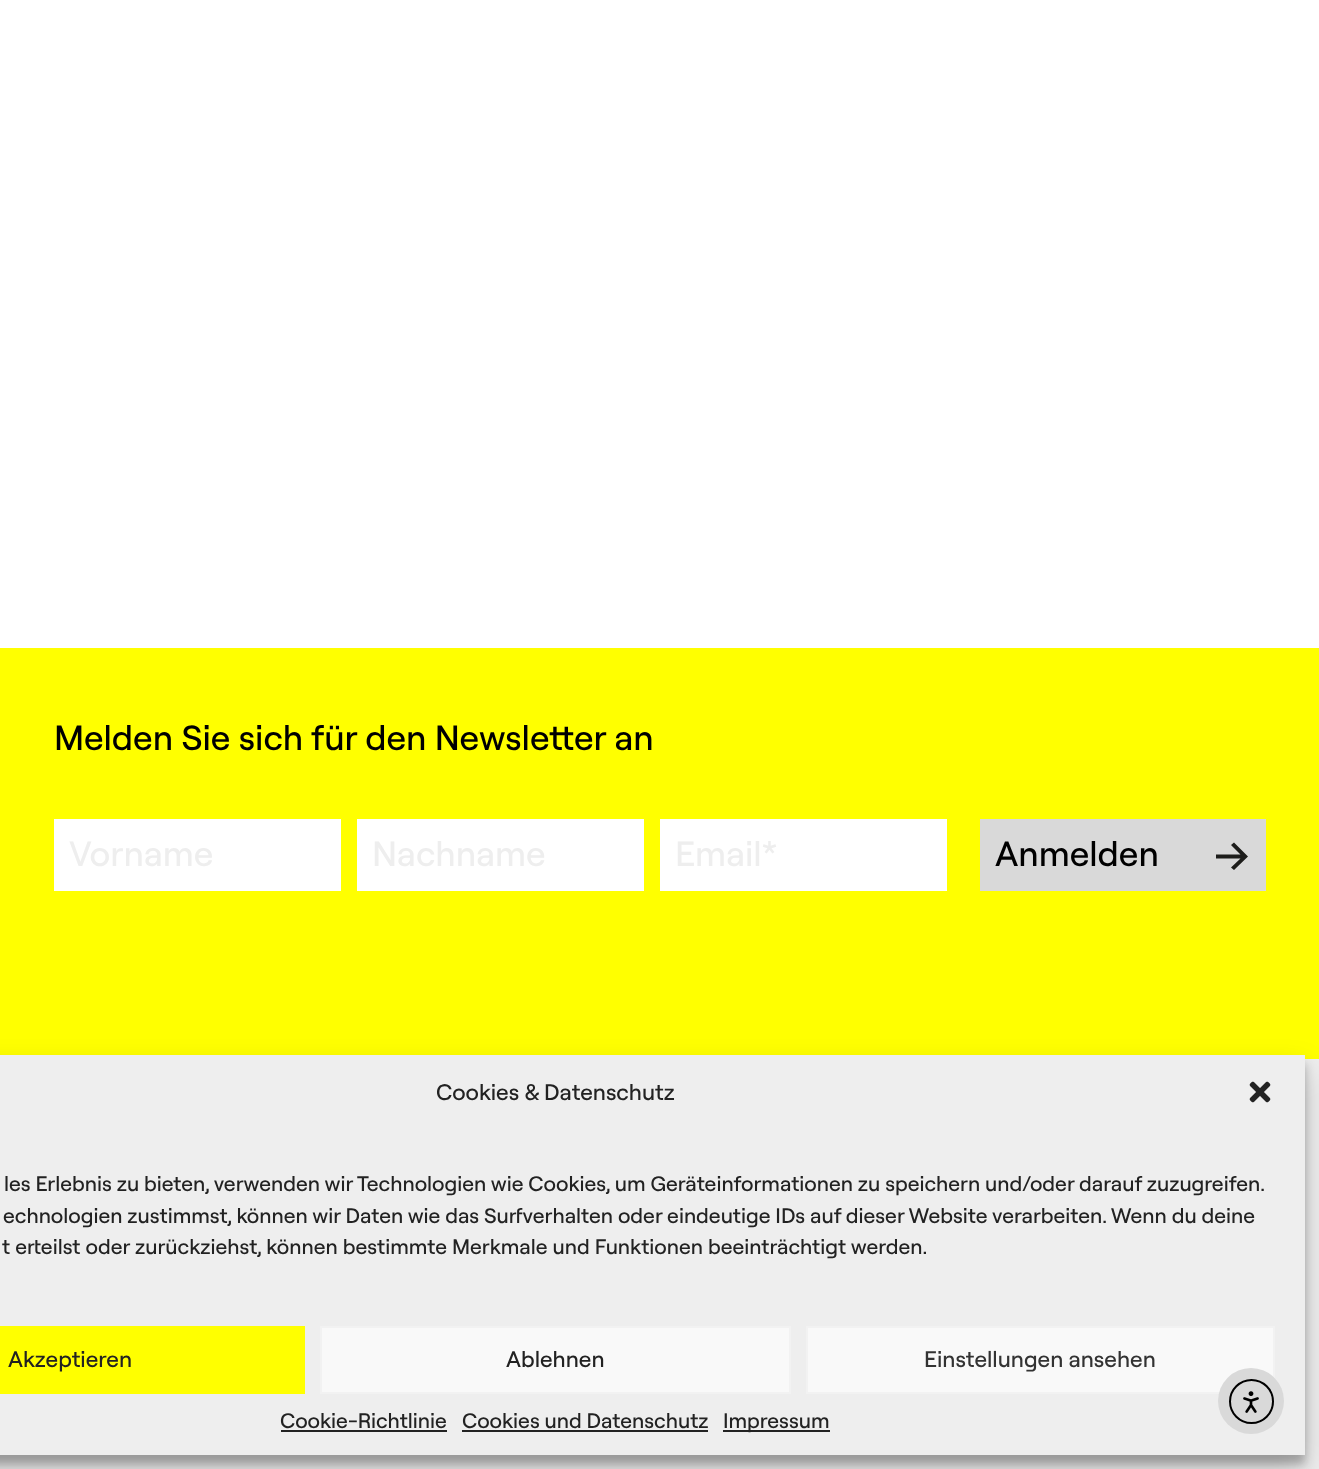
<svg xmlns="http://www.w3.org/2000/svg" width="1319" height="1469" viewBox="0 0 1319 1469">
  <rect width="100%" height="100%" fill="rgb(255,255,255)"/>
  <rect x="0" y="1059" width="1319" height="410" fill="rgb(238,238,238)"/>
  <rect x="0" y="648" width="1319" height="411" fill="rgb(255,255,0)"/>
  <text x="54" y="750" word-spacing="0.25" font-family="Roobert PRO" font-size="35" font-weight="500" fill="rgb(0,0,0)">Melden Sie sich für den Newsletter an</text>
  <rect x="54" y="819" width="287" height="72" fill="rgb(255,255,255)"/>
  <text x="69" y="866" font-family="Roobert PRO" font-size="35" font-weight="500" fill="rgb(238,238,238)">Vorname</text>
  <rect x="357" y="819" width="287" height="72" fill="rgb(255,255,255)"/>
  <text x="372" y="866" font-family="Roobert PRO" font-size="35" font-weight="500" fill="rgb(238,238,238)">Nachname</text>
  <rect x="660" y="819" width="287" height="72" fill="rgb(255,255,255)"/>
  <text x="675" y="866" font-family="Roobert PRO" font-size="35" font-weight="500" fill="rgb(238,238,238)">Email*</text>
  <rect x="980" y="819" width="286" height="72" fill="rgb(217,217,217)"/>
  <text x="995" y="866" font-family="Roobert PRO" font-size="35" font-weight="500" fill="rgb(0,0,0)">Anmelden</text>
  <path d="M1234 870L1231 867.5L1240.5 858.5H1216V854.5H1240.5L1231 845L1234 842.5L1248 856.5Z" fill="rgb(29,29,27)"/>
  <rect x="-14" y="1064" width="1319" height="400" fill="rgba(0,0,0,0.23)" filter="blur(4.5px)"/>
  <rect x="-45" y="1070" width="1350" height="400" fill="rgba(0,0,0,0.19)" filter="blur(15px)"/>
  <rect x="0" y="1055" width="1305" height="400" fill="rgb(238,238,238)"/>
  <text x="436" y="1100" font-family="Roobert PRO" font-size="22.5" font-weight="500" fill="rgb(34,34,34)">Cookies &amp; Datenschutz</text>
  <image x="1249" y="1081" width="22" height="22" href="pic1.png"/>
  <g font-family="Roobert PRO" font-size="21" font-weight="500" fill="rgb(34,34,34)">
    <text x="4" y="1191">les Erlebnis zu bieten, verwenden wir Technologien wie Cookies, um Geräteinformationen zu speichern und/oder darauf zuzugreifen.</text>
    <text x="3" y="1223">echnologien zustimmst, können wir Daten wie das Surfverhalten oder eindeutige IDs auf dieser Website verarbeiten. Wenn du deine</text>
    <text x="2" y="1254" word-spacing="0.25">t erteilst oder zurückziehst, können bestimmte Merkmale und Funktionen beeinträchtigt werden.</text>
  </g>
  <rect x="0" y="1326" width="305" height="68" fill="rgb(255,255,0)"/>
  <text x="8" y="1367" font-family="Roobert PRO" font-size="22.5" font-weight="500" fill="rgb(34,34,34)">Akzeptieren</text>
  <rect x="321" y="1327" width="469" height="66" fill="rgb(249,249,249)" stroke="rgb(242,242,242)" stroke-width="2"/>
  <text x="506" y="1367" font-family="Roobert PRO" font-size="22.5" font-weight="500" fill="rgb(34,34,34)">Ablehnen</text>
  <rect x="807" y="1327" width="467" height="66" fill="rgb(249,249,249)" stroke="rgb(242,242,242)" stroke-width="2"/>
  <text x="924" y="1367" font-family="Roobert PRO" font-size="22.5" font-weight="500" fill="rgb(51,51,51)">Einstellungen ansehen</text>
  <text x="280" y="1428" font-family="Roobert PRO" font-size="21" font-weight="500" fill="rgb(34,34,34)">Cookie-Richtlinie</text>
  <rect x="281" y="1430" width="166" height="2" fill="rgb(34,34,34)"/>
  <text x="462" y="1428" font-family="Roobert PRO" font-size="21" font-weight="500" fill="rgb(34,34,34)">Cookies und Datenschutz</text>
  <rect x="462" y="1430" width="246" height="2" fill="rgb(34,34,34)"/>
  <rect x="723" y="1430" width="107" height="2" fill="rgb(34,34,34)"/>
  <text x="723" y="1428" font-family="Roobert PRO" font-size="21" font-weight="500" fill="rgb(34,34,34)">Impressum</text>
  <circle cx="1251" cy="1401" r="33" fill="rgb(217,217,217)"/>
  <circle cx="1251.5" cy="1401.5" r="21.5" fill="none" stroke="rgb(0,0,0)" stroke-width="2"/>
  <image x="1243" y="1391" width="16" height="22" href="pic2.png"/>
</svg>
